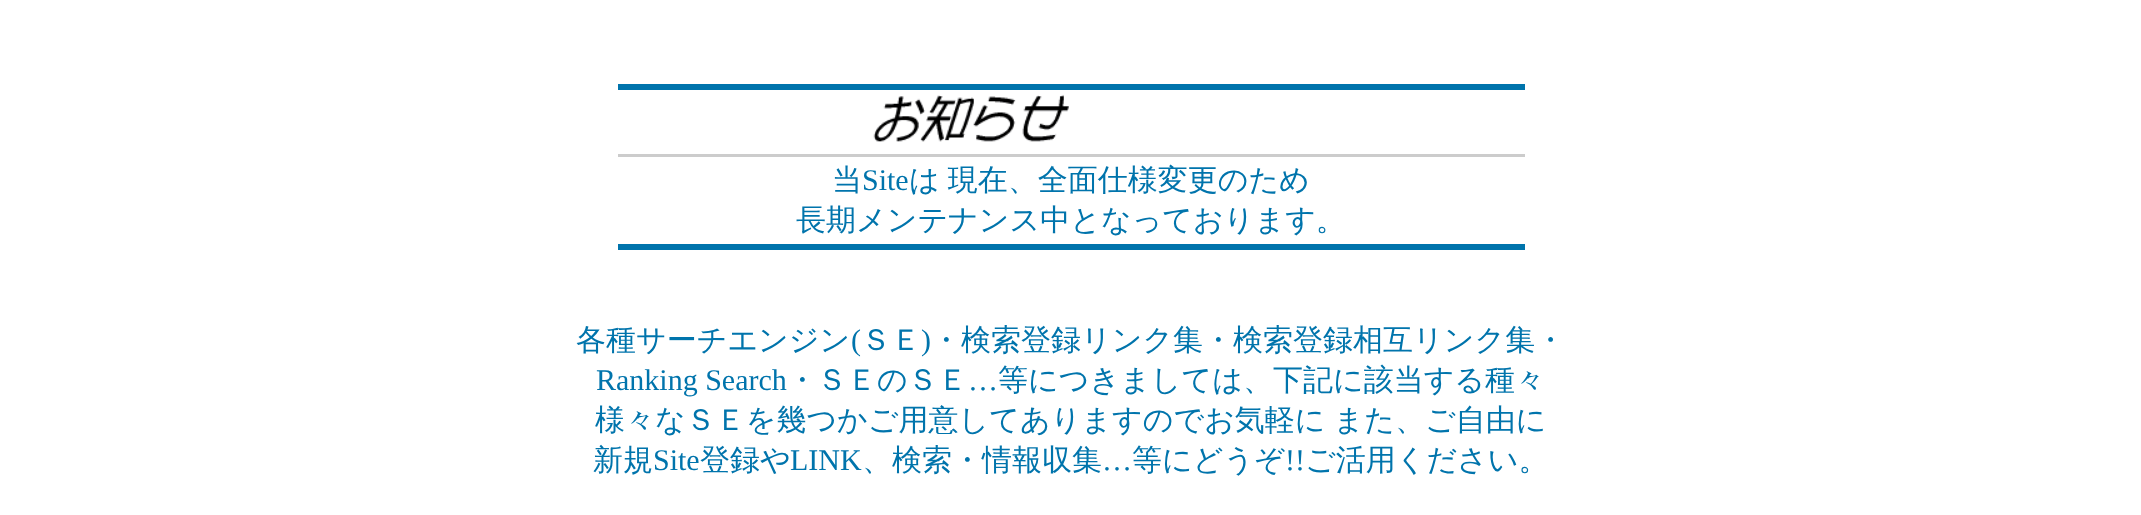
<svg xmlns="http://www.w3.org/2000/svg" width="2141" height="515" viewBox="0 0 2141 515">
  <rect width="100%" height="100%" fill="rgb(255,255,255)"/>
  <rect x="618" y="84" width="907" height="6" fill="rgb(0,116,172)"/>
  <image x="873" y="94" width="196" height="48" href="pic1.png"/>
  <rect x="618" y="154" width="907" height="3" fill="rgb(204,204,204)"/>
  <text x="832" y="190" font-family="WenQuanYi Zen Hei" font-size="30" font-weight="500" fill="rgb(0,116,172)">当</text>
  <text x="862" y="190" font-family="Liberation Serif" font-size="30" fill="rgb(0,116,172)">Site</text>
  <g font-family="WenQuanYi Zen Hei" font-size="30" font-weight="500" fill="rgb(0,116,172)">
    <text x="909" y="190" word-spacing="-1">は 現在、全面仕様変更のため</text>
    <text x="796" y="230">長期メンテナンス中となっております。</text>
  </g>
  <rect x="618" y="244" width="907" height="6" fill="rgb(0,116,172)"/>
  <text x="576" y="350" font-family="WenQuanYi Zen Hei" font-size="30" font-weight="500" fill="rgb(0,116,172)">各種サーチエンジン</text>
  <text x="851" y="350" font-family="Liberation Serif" font-size="30" fill="rgb(0,116,172)">(</text>
  <text x="861" y="350" font-family="WenQuanYi Zen Hei" font-size="30" font-weight="500" fill="rgb(0,116,172)">ＳＥ</text>
  <text x="921" y="350" font-family="Liberation Serif" font-size="30" fill="rgb(0,116,172)">)</text>
  <text x="931" y="350" font-family="WenQuanYi Zen Hei" font-size="30" font-weight="500" fill="rgb(0,116,172)">・検索登録リンク集・検索登録相互リンク集・</text>
  <text x="596" y="390" font-family="Liberation Serif" font-size="30" fill="rgb(0,116,172)">Ranking Search</text>
  <text x="787" y="390" font-family="WenQuanYi Zen Hei" font-size="30" font-weight="500" fill="rgb(0,116,172)">・ＳＥのＳＥ</text>
  <text x="968" y="390" font-family="Liberation Serif" font-size="30" fill="rgb(0,116,172)">…</text>
  <g font-family="WenQuanYi Zen Hei" font-size="30" font-weight="500" fill="rgb(0,116,172)">
    <text x="998" y="390">等につきましては、下記に該当する種々</text>
    <text x="595" y="430" word-spacing="-1">様々なＳＥを幾つかご用意してありますのでお気軽に また、ご自由に</text>
    <text x="593" y="470">新規</text>
  </g>
  <text x="653" y="470" font-family="Liberation Serif" font-size="30" fill="rgb(0,116,172)">Site</text>
  <text x="700" y="470" font-family="WenQuanYi Zen Hei" font-size="30" font-weight="500" fill="rgb(0,116,172)">登録や</text>
  <text x="790" y="470" font-family="Liberation Serif" font-size="30" fill="rgb(0,116,172)">LINK</text>
  <text x="862" y="470" font-family="WenQuanYi Zen Hei" font-size="30" font-weight="500" fill="rgb(0,116,172)">、検索・情報収集</text>
  <text x="1102" y="470" font-family="Liberation Serif" font-size="30" fill="rgb(0,116,172)">…</text>
  <text x="1132" y="470" font-family="WenQuanYi Zen Hei" font-size="30" font-weight="500" fill="rgb(0,116,172)">等にどうぞ</text>
  <text x="1285" y="470" font-family="Liberation Serif" font-size="30" fill="rgb(0,116,172)">!!</text>
  <text x="1305" y="470" font-family="WenQuanYi Zen Hei" font-size="30" font-weight="500" fill="rgb(0,116,172)">ご活用ください。</text>
</svg>
